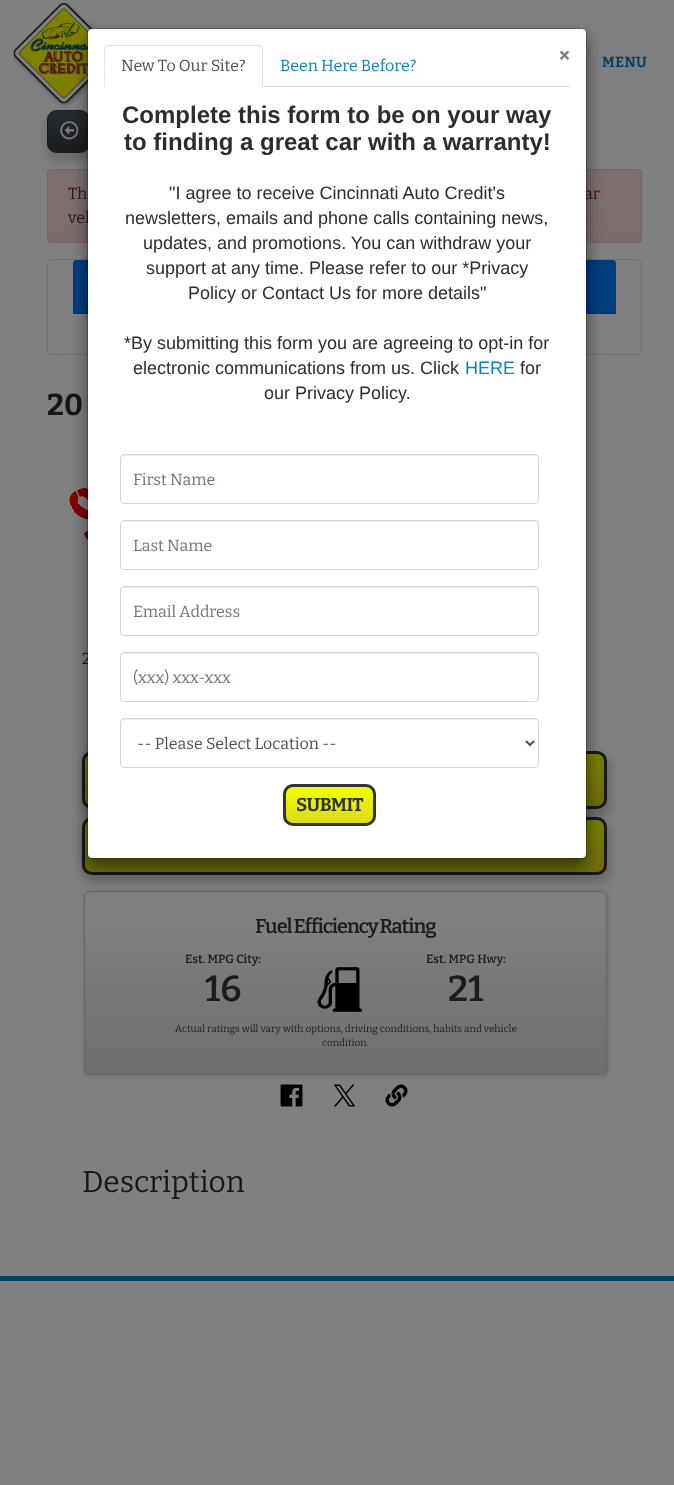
<svg xmlns="http://www.w3.org/2000/svg" width="674" height="1485" viewBox="0 0 674 1485">
  <defs>
    <clipPath id="clip1"><rect x="47" y="110" width="43" height="43" rx="10"/></clipPath>
    <linearGradient id="g1" gradientUnits="userSpaceOnUse" x1="69" y1="111" x2="69" y2="152"><stop offset="0" stop-color="rgb(41,44,47)"/><stop offset="1" stop-color="rgb(26,29,32)"/></linearGradient>
    <clipPath id="clip2"><rect x="47" y="169" width="595" height="74" rx="4"/></clipPath>
    <linearGradient id="g2" gradientUnits="userSpaceOnUse" x1="345" y1="170" x2="345" y2="242"><stop offset="0" stop-color="rgb(125,111,112)"/><stop offset="1" stop-color="rgb(124,108,109)"/></linearGradient>
    <clipPath id="clip3"><rect x="82" y="751" width="525" height="58" rx="10"/></clipPath>
    <linearGradient id="g3" gradientUnits="userSpaceOnUse" x1="345" y1="806" x2="345" y2="754"><stop offset="0" stop-color="rgb(111,109,14)"/><stop offset="1" stop-color="rgb(121,128,0)"/></linearGradient>
    <clipPath id="clip4"><rect x="82" y="817" width="525" height="58" rx="10"/></clipPath>
    <linearGradient id="g4" gradientUnits="userSpaceOnUse" x1="345" y1="872" x2="345" y2="820"><stop offset="0" stop-color="rgb(111,109,14)"/><stop offset="1" stop-color="rgb(121,128,0)"/></linearGradient>
    <clipPath id="clip5"><rect x="84" y="891" width="523" height="184" rx="5"/></clipPath>
    <linearGradient id="g5" gradientUnits="userSpaceOnUse" x1="346" y1="892" x2="346" y2="1074"><stop offset="0.19" stop-color="rgb(127,127,127)"/><stop offset="1" stop-color="rgb(111,111,111)"/></linearGradient>
    <clipPath id="clip6"><rect x="283" y="784" width="93" height="42" rx="10"/></clipPath>
    <linearGradient id="g6" gradientUnits="userSpaceOnUse" x1="330" y1="823" x2="330" y2="787"><stop offset="0" stop-color="rgb(221,217,28)"/><stop offset="1" stop-color="rgb(241,255,0)"/></linearGradient>
  </defs>
  <rect width="100%" height="100%" fill="rgb(128,128,128)"/>
  <image x="12" y="2" width="84" height="106" href="pic1.png"/>
  <rect x="47" y="114" width="47" height="47" rx="12" fill="rgba(0,0,0,0.18)" filter="blur(5px)"/>
  <g clip-path="url(#clip1)">
    <rect x="47" y="111" width="41" height="41" fill="url(#g1)"/>
  </g>
  <rect x="47.5" y="110.5" width="42" height="42" rx="9.5" fill="none" stroke="rgb(26,29,32)"/>
  <image x="60" y="121" width="18" height="19" href="pic2.png"/>
  <g clip-path="url(#clip2)">
    <rect x="47" y="170" width="595" height="72" fill="url(#g2)"/>
  </g>
  <rect x="47.5" y="169.5" width="594" height="73" rx="3.5" fill="none" stroke="rgb(123,99,102)"/>
  <rect x="47.5" y="259.5" width="594" height="95" rx="3.5" fill="none" stroke="rgb(112,112,112)"/>
  <path d="M76 260H613C614.5 260 616 261.5 616 263V314H73V263C73 261.5 74.5 260 76 260Z" fill="rgb(0,62,128)"/>
  <rect x="73" y="313" width="543" height="1" fill="rgb(0,54,112)"/>
  <image x="69" y="488" width="19" height="52" href="pic3.png"/>
  <rect x="82" y="755" width="529" height="62" rx="12" fill="rgba(0,0,0,0.18)" filter="blur(5px)"/>
  <g clip-path="url(#clip3)">
    <rect x="82" y="754" width="525" height="52" fill="url(#g3)"/>
  </g>
  <rect x="83.5" y="752.5" width="522" height="55" rx="8.5" fill="none" stroke="rgb(25,26,26)" stroke-width="3"/>
  <rect x="82" y="821" width="529" height="62" rx="12" fill="rgba(0,0,0,0.18)" filter="blur(5px)"/>
  <g clip-path="url(#clip4)">
    <rect x="82" y="820" width="525" height="52" fill="url(#g4)"/>
  </g>
  <rect x="83.5" y="818.5" width="522" height="55" rx="8.5" fill="none" stroke="rgb(25,26,26)" stroke-width="3"/>
  <image x="280" y="1084" width="23" height="23" href="pic5.png"/>
  <image x="333" y="1084" width="23" height="23" href="pic6.png"/>
  <image x="385" y="1084" width="23" height="23" href="pic7.png"/>
  <rect x="85" y="892" width="523" height="184" rx="5" fill="rgba(102,102,102,0.75)" filter="blur(2.5px)"/>
  <g clip-path="url(#clip5)">
    <rect x="84" y="892" width="523" height="182" fill="url(#g5)"/>
  </g>
  <rect x="84.5" y="891.5" width="522" height="183" rx="4.5" fill="none" stroke="rgb(102,102,102)"/>
  <rect x="87" y="36" width="500" height="831" rx="5" fill="rgba(0,0,0,0.5)" filter="blur(8px)"/>
  <g font-family="Bitter" font-size="16" fill="rgb(57,14,18)">
    <text x="584" y="199">ar</text>
    <text x="68" y="223">veh</text>
  </g>
  <text x="82" y="664" font-family="Bitter" font-size="16" fill="rgb(23,23,23)">2</text>
  <rect x="88" y="29" width="498" height="829" rx="4" fill="rgb(255,255,255)"/>
  <rect x="87.5" y="28.5" width="499" height="830" rx="4.5" fill="none" stroke="rgba(0,0,0,0.2)"/>
  <text x="559" y="63" font-family="Bitter" font-size="22" font-weight="bold" fill="rgb(128,128,128)">×</text>
  <path d="M108 45L105 46L106 47L108 46H259L261 47L262 46L259 45Z" fill="rgb(222,226,230)"/>
  <path d="M263 87V49C263 48 262 47 262 46L261 47C263 49 262 81 262 86Z" fill="rgb(222,226,230)"/>
  <path d="M263 87L262 86H105L104 87Z" fill="rgb(255,255,255)"/>
  <path d="M104 87L105 86C105 81 104 49 106 47L105 46L104 49Z" fill="rgb(222,226,230)"/>
  <text x="121" y="71" font-family="Bitter" font-size="16" fill="rgb(73,80,87)">New To Our Site?</text>
  <text x="280" y="71" font-family="Bitter" font-size="16" fill="rgb(9,130,192)">Been Here Before?</text>
  <rect x="263" y="86" width="307" height="1" fill="rgb(221,221,221)"/>
  <g font-family="Liberation Sans" font-size="24" font-weight="bold" fill="rgb(45,45,45)">
    <text x="122" y="123">Complete this form to be on your way</text>
    <text x="124" y="150">to finding a great car with a warranty!</text>
  </g>
  <g font-family="Liberation Sans" font-size="18" fill="rgb(45,45,45)">
    <text x="169" y="199">"I agree to receive Cincinnati Auto Credit's</text>
    <text x="125" y="224">newsletters, emails and phone calls containing news,</text>
    <text x="143" y="249">updates, and promotions. You can withdraw your</text>
    <text x="146" y="274">support at any time. Please refer to our *Privacy</text>
    <text x="188" y="299">Policy or Contact Us for more details"</text>
    <text x="124" y="349">*By submitting this form you are agreeing to opt-in for</text>
    <text x="133" y="374">electronic communications from us. Click</text>
  </g>
  <text x="465" y="374" font-family="Liberation Sans" font-size="18" fill="rgb(9,130,192)">HERE</text>
  <g font-family="Liberation Sans" font-size="18" fill="rgb(45,45,45)">
    <text x="520" y="374">for</text>
    <text x="264" y="399">our Privacy Policy.</text>
  </g>
  <path d="M124 456H535C537 456 538 457 538 459C538 457 537 455 535 455H124C122 455 121 457 121 459C121 457 122 456 124 456Z" fill="rgb(236,236,236)"/>
  <rect x="120.5" y="454.5" width="418" height="49" rx="3.5" fill="none" stroke="rgb(212,212,212)"/>
  <text x="133" y="485" font-family="Bitter" font-size="16" fill="rgb(108,117,125)">First Name</text>
  <path d="M124 522H535C537 522 538 523 538 525C538 523 537 521 535 521H124C122 521 121 523 121 525C121 523 122 522 124 522Z" fill="rgb(236,236,236)"/>
  <rect x="120.5" y="520.5" width="418" height="49" rx="3.5" fill="none" stroke="rgb(212,212,212)"/>
  <text x="133" y="551" font-family="Bitter" font-size="16" fill="rgb(108,117,125)">Last Name</text>
  <path d="M124 588H535C537 588 538 589 538 591C538 589 537 587 535 587H124C122 587 121 589 121 591C121 589 122 588 124 588Z" fill="rgb(236,236,236)"/>
  <rect x="120.5" y="586.5" width="418" height="49" rx="3.5" fill="none" stroke="rgb(212,212,212)"/>
  <text x="133" y="617" font-family="Bitter" font-size="16" fill="rgb(108,117,125)">Email Address</text>
  <path d="M124 654H535C537 654 538 655 538 657C538 655 537 653 535 653H124C122 653 121 655 121 657C121 655 122 654 124 654Z" fill="rgb(236,236,236)"/>
  <rect x="120.5" y="652.5" width="418" height="49" rx="3.5" fill="none" stroke="rgb(212,212,212)"/>
  <text x="133" y="683" font-family="Bitter" font-size="16" fill="rgb(108,117,125)">(xxx) xxx-xxx</text>
  <path d="M124 720H535C537 720 538 721 538 723C538 721 537 719 535 719H124C122 719 121 721 121 723C121 721 122 720 124 720Z" fill="rgb(236,236,236)"/>
  <rect x="120.5" y="718.5" width="418" height="49" rx="3.5" fill="none" stroke="rgb(212,212,212)"/>
  <path d="M526 741L530 745L534 741" fill="none" stroke="rgb(73,80,87)" stroke-width="2"/>
  <text x="137" y="749" font-family="Bitter" font-size="16" fill="rgb(73,80,87)">-- Please Select Location --</text>
  <g clip-path="url(#clip6)">
    <rect x="283" y="787" width="93" height="36" fill="url(#g6)"/>
  </g>
  <rect x="284.5" y="785.5" width="90" height="39" rx="8.5" fill="none" stroke="rgb(49,51,52)" stroke-width="3"/>
  <text x="296" y="811" font-family="Bitter" font-size="18.5" font-weight="bold" letter-spacing="-0.5" fill="rgb(49,51,52)">SUBMIT</text>
  <text x="602" y="67" font-family="Bitter" font-size="14.5" font-weight="bold" letter-spacing="0.5" fill="rgb(5,65,96)">MENU</text>
  <text x="68" y="199" font-family="Bitter" font-size="16" fill="rgb(57,14,18)">Th</text>
  <text x="47" y="415" font-family="Bitter" font-size="30" font-weight="bold" fill="rgb(23,23,23)">20</text>
  <text x="255" y="933" word-spacing="-1" font-family="Bitter" font-size="20" font-weight="600" letter-spacing="-1" fill="rgb(29,29,29)">Fuel Efficiency Rating</text>
  <text x="185" y="963" font-family="Bitter" font-size="12" font-weight="600" fill="rgb(29,29,29)">Est. MPG City:</text>
  <text x="205" y="1001" font-family="Bitter" font-size="36" font-weight="600" fill="rgb(29,29,29)">16</text>
  <image x="317" y="967" width="45" height="45" href="pic4.png"/>
  <text x="426" y="963" font-family="Bitter" font-size="12" font-weight="600" fill="rgb(29,29,29)">Est. MPG Hwy:</text>
  <text x="448" y="1001" font-family="Bitter" font-size="36" font-weight="600" fill="rgb(29,29,29)">21</text>
  <g font-family="Bitter" font-size="10" fill="rgb(29,29,29)">
    <text x="175" y="1032">Actual ratings will vary with options, driving conditions, habits and vehicle</text>
    <text x="322" y="1046">condition.</text>
  </g>
  <text x="82" y="1192" font-family="Bitter" font-size="30" fill="rgb(23,23,23)">Description</text>
  <rect x="0" y="1276" width="674" height="5" fill="rgb(5,65,96)"/>
</svg>
